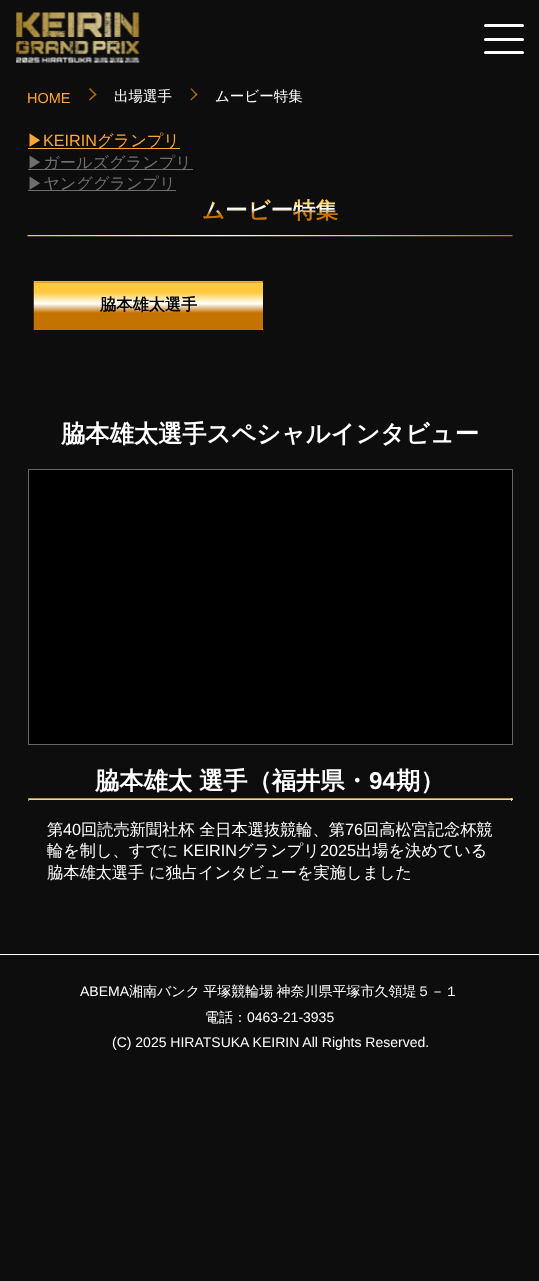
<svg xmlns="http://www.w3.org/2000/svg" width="539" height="1281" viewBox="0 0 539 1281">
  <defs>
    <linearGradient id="g1" gradientUnits="userSpaceOnUse" x1="270" y1="195" x2="270" y2="225"><stop offset="0" stop-color="rgb(254,201,61)"/><stop offset="0.2" stop-color="rgb(254,201,61)"/><stop offset="0.45" stop-color="rgb(255,255,255)"/><stop offset="0.65" stop-color="rgb(197,115,0)"/><stop offset="1" stop-color="rgb(197,115,0)"/></linearGradient>
    <linearGradient id="g2" gradientUnits="userSpaceOnUse" x1="148" y1="236" x2="148" y2="283"><stop offset="0" stop-color="rgb(254,201,61)"/><stop offset="0.2" stop-color="rgb(254,201,61)"/><stop offset="0.45" stop-color="rgb(255,255,255)"/><stop offset="0.65" stop-color="rgb(197,115,0)"/><stop offset="1" stop-color="rgb(197,115,0)"/></linearGradient>
    <linearGradient id="g3" gradientUnits="userSpaceOnUse" x1="148" y1="283" x2="148" y2="329"><stop offset="0" stop-color="rgb(254,201,61)"/><stop offset="0.2" stop-color="rgb(254,201,61)"/><stop offset="0.45" stop-color="rgb(255,255,255)"/><stop offset="0.65" stop-color="rgb(197,115,0)"/><stop offset="1" stop-color="rgb(197,115,0)"/></linearGradient>
    <linearGradient id="g4" gradientUnits="userSpaceOnUse" x1="148" y1="329" x2="148" y2="375"><stop offset="0" stop-color="rgb(254,201,61)"/><stop offset="0.2" stop-color="rgb(254,201,61)"/><stop offset="0.45" stop-color="rgb(255,255,255)"/><stop offset="0.65" stop-color="rgb(197,115,0)"/><stop offset="1" stop-color="rgb(197,115,0)"/></linearGradient>
  </defs>
  <rect width="100%" height="100%" fill="rgb(13,13,13)"/>
  <image x="16" y="12" width="124" height="51" href="pic1.png"/>
  <rect x="484" y="24" width="40" height="3" rx="1.5" fill="rgb(255,255,255)"/>
  <rect x="484" y="38" width="40" height="3" rx="1.5" fill="rgb(255,255,255)"/>
  <rect x="484" y="51" width="40" height="3" rx="1.5" fill="rgb(255,255,255)"/>
  <text x="27" y="103" font-family="Liberation Sans" font-size="14.5" fill="rgb(255,167,53)">HOME</text>
  <path d="M90 88L96.5 94.5L95.5 95.5L89 89Z" fill="rgb(183,117,3)"/>
  <path d="M95.5 93.5L96.5 94.5L90 100.5L89 99.5Z" fill="rgb(183,117,3)"/>
  <text x="114" y="101" font-family="WenQuanYi Zen Hei" font-size="14.5" font-weight="500" fill="rgb(255,255,255)">出場選手</text>
  <path d="M191 88L197.5 94.5L196.5 95.5L190.5 89Z" fill="rgb(183,117,3)"/>
  <path d="M196.5 93.5L197.5 94.5L191 100.5L190.5 99.5Z" fill="rgb(183,117,3)"/>
  <text x="215" y="101" font-family="WenQuanYi Zen Hei" font-size="14.5" font-weight="500" fill="rgb(255,255,255)">ムービー特集</text>
  <text x="27" y="146" font-family="WenQuanYi Zen Hei" font-size="16.2" font-weight="500" fill="rgb(255,167,53)">▶︎</text>
  <text x="43" y="146" font-family="Liberation Sans" font-size="16.2" fill="rgb(255,167,53)">KEIRIN</text>
  <rect x="28" y="148" width="152" height="1" fill="rgb(255,167,53)"/>
  <text x="97" y="146" font-family="WenQuanYi Zen Hei" font-size="16.2" font-weight="500" fill="rgb(255,167,53)">グランプリ</text>
  <rect x="28" y="169" width="165" height="1" fill="rgb(110,110,110)"/>
  <text x="27" y="168" font-family="WenQuanYi Zen Hei" font-size="16.2" font-weight="500" fill="rgb(110,110,110)">▶︎ガールズグランプリ</text>
  <rect x="28" y="190" width="148" height="1" fill="rgb(110,110,110)"/>
  <text x="27" y="189" font-family="WenQuanYi Zen Hei" font-size="16.2" font-weight="500" fill="rgb(110,110,110)">▶︎ヤンググランプリ</text>
  <image x="27" y="235" width="486" height="2" href="pic2.png"/>
  <text x="202" y="218" font-family="WenQuanYi Zen Hei" font-size="22.5" font-weight="bold" fill="url(#g1)">ムービー特集</text>
  <rect x="34" y="281" width="229" height="2" fill="url(#g2)"/>
  <rect x="34" y="283" width="229" height="46" fill="url(#g3)"/>
  <rect x="261" y="329" width="2" height="1" fill="url(#g4)"/>
  <image x="33" y="281" width="230" height="49" href="pic3.png"/>
  <text x="100" y="310" font-family="WenQuanYi Zen Hei" font-size="16.2" font-weight="bold" fill="rgb(0,0,0)">脇本雄太選手</text>
  <text x="61" y="442" font-family="WenQuanYi Zen Hei" font-size="24.25" font-weight="bold" fill="rgb(255,255,255)">脇本雄太選手スペシャルインタビュー</text>
  <rect x="28.5" y="469.5" width="484" height="275" fill="rgb(0,0,0)" stroke="rgb(102,102,102)"/>
  <g font-family="WenQuanYi Zen Hei" font-size="24.25" font-weight="bold" fill="rgb(255,255,255)">
    <text x="95" y="789">脇本雄太</text>
    <text x="199" y="789">選手（福井県・</text>
  </g>
  <text x="369" y="789" font-family="Liberation Sans" font-size="24.25" font-weight="bold" fill="rgb(255,255,255)">94</text>
  <text x="396" y="789" font-family="WenQuanYi Zen Hei" font-size="24.25" font-weight="bold" fill="rgb(255,255,255)">期）</text>
  <rect x="28" y="798" width="485" height="1" fill="rgb(166,145,88)"/>
  <rect x="511" y="798" width="1" height="3" fill="rgb(249,218,132)"/>
  <rect x="28" y="799" width="485" height="1" fill="rgb(249,218,132)"/>
  <rect x="28" y="798" width="1" height="3" fill="rgb(166,145,88)"/>
  <text x="47" y="835" font-family="WenQuanYi Zen Hei" font-size="16.2" font-weight="500" fill="rgb(255,255,255)">第</text>
  <text x="63" y="835" font-family="Liberation Sans" font-size="16.2" fill="rgb(255,255,255)">40</text>
  <text x="81" y="835" font-family="WenQuanYi Zen Hei" font-size="16.2" font-weight="500" fill="rgb(255,255,255)">回読売新聞社杯 全日本選抜競輪、第</text>
  <text x="345" y="835" font-family="Liberation Sans" font-size="16.2" fill="rgb(255,255,255)">76</text>
  <g font-family="WenQuanYi Zen Hei" font-size="16.2" font-weight="500" fill="rgb(255,255,255)">
    <text x="363" y="835">回高松宮記念杯競</text>
    <text x="47" y="856">輪を制し、すでに</text>
  </g>
  <text x="183" y="856" font-family="Liberation Sans" font-size="16.2" fill="rgb(255,255,255)">KEIRIN</text>
  <text x="237" y="856" font-family="WenQuanYi Zen Hei" font-size="16.2" font-weight="500" fill="rgb(255,255,255)">グランプリ</text>
  <text x="320" y="856" font-family="Liberation Sans" font-size="16.2" fill="rgb(255,255,255)">2025</text>
  <g font-family="WenQuanYi Zen Hei" font-size="16.2" font-weight="500" fill="rgb(255,255,255)">
    <text x="356" y="856">出場を決めている</text>
    <text x="47" y="878">脇本雄太選手 に独占インタビューを実施しました</text>
  </g>
  <rect x="0" y="954" width="539" height="1" fill="rgb(255,255,255)"/>
  <text x="80" y="996" font-family="Liberation Sans" font-size="14" fill="rgb(255,255,255)">ABEMA</text>
  <g font-family="WenQuanYi Zen Hei" font-size="14" font-weight="500" fill="rgb(255,255,255)">
    <text x="129" y="996" word-spacing="-1">湘南バンク 平塚競輪場 神奈川県平塚市久領堤５－１</text>
    <text x="205" y="1022">電話：</text>
  </g>
  <g font-family="Liberation Sans" font-size="14" fill="rgb(255,255,255)">
    <text x="247" y="1022">0463-21-3935</text>
    <text x="112" y="1047">(C) 2025 HIRATSUKA KEIRIN All Rights Reserved.</text>
  </g>
</svg>
